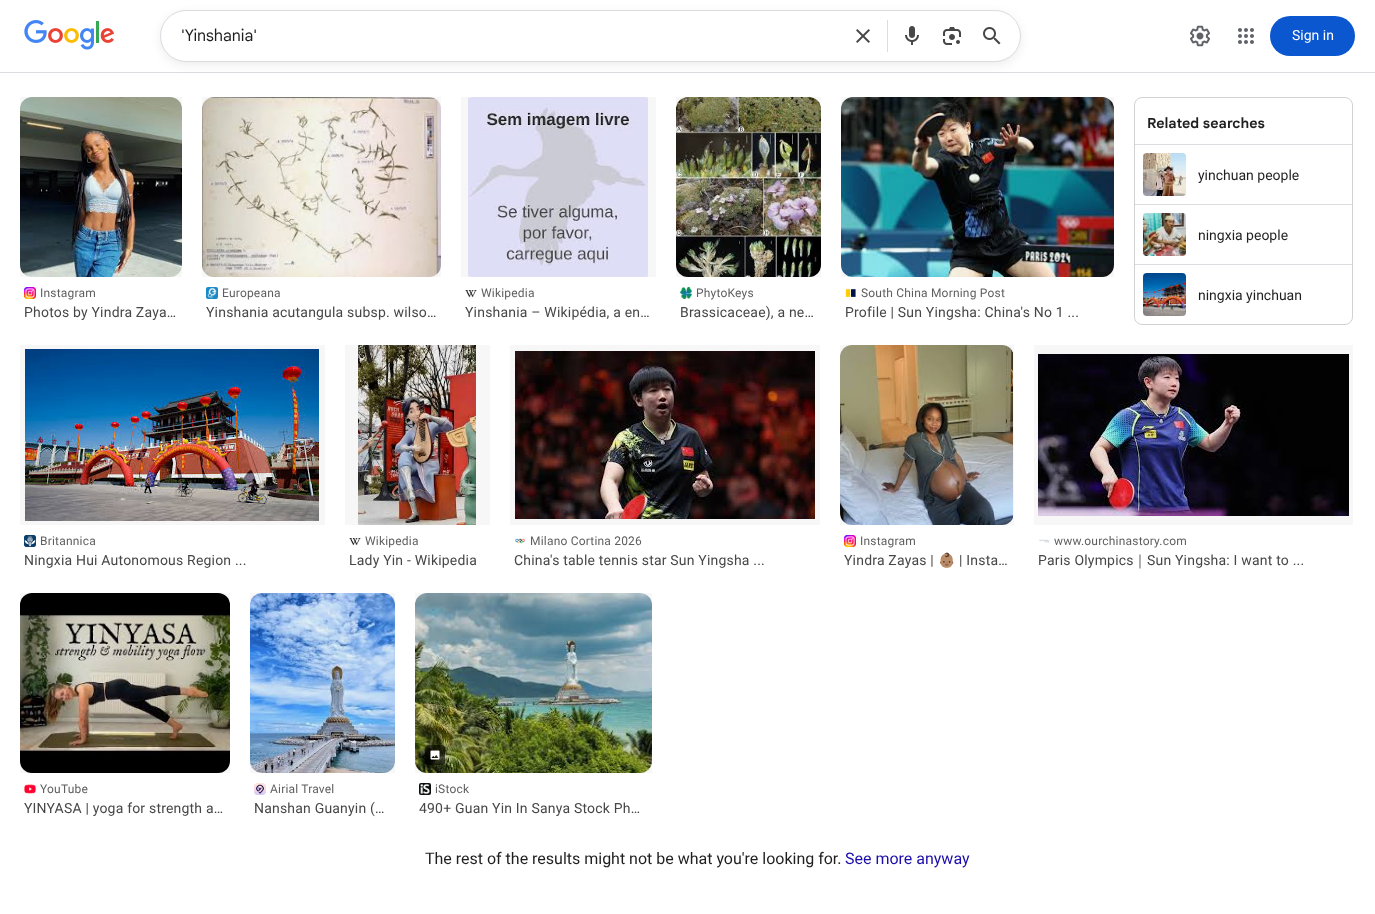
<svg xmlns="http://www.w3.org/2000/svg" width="1375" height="914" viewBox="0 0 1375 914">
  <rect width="100%" height="100%" fill="rgb(255,255,255)"/>
  <rect x="0" y="72" width="1375" height="1" fill="rgb(218,220,224)"/>
  <image x="24" y="20" width="90" height="30" href="pic1.png"/>
  <rect x="160" y="13" width="861" height="52" rx="26" fill="rgba(31,31,31,0.08)" filter="blur(5px)"/>
  <rect x="160.5" y="10.5" width="860" height="51" rx="25.5" fill="rgb(255,255,255)" stroke="rgb(218,220,224)"/>
  <text x="181" y="41" font-family="Google Sans" font-size="16" fill="rgb(31,31,31)">'Yinshania'</text>
  <image x="856" y="29" width="14" height="14" href="pic2.png"/>
  <rect x="887" y="20" width="1" height="32" fill="rgb(218,220,224)"/>
  <image x="905" y="26" width="14" height="19" href="pic3.png"/>
  <image x="943" y="27" width="18" height="18" href="pic4.png"/>
  <image x="983" y="27" width="18" height="18" href="pic5.png"/>
  <image x="1190" y="25" width="20" height="22" href="pic6.png"/>
  <image x="1238" y="28" width="16" height="16" href="pic7.png"/>
  <rect x="1270" y="16" width="85" height="40" rx="20" fill="rgb(11,87,208)"/>
  <text x="1292" y="40" font-family="Roboto" font-size="14" fill="rgb(255,255,255)">Sign in</text>
  <image x="20" y="97" width="162" height="180" href="pic8.png"/>
  <rect x="20" y="97" width="162" height="180" fill="rgba(0,0,0,0.03)"/>
  <image x="24" y="287" width="12" height="12" href="pic9.png"/>
  <text x="40" y="297" font-family="Roboto" font-size="12" letter-spacing="0.2" fill="rgb(94,94,94)">Instagram</text>
  <text x="24" y="317" font-family="Roboto" font-size="14" letter-spacing="0.2" fill="rgb(71,71,71)">Photos by Yindra Zaya…</text>
  <image x="202" y="97" width="239" height="180" href="pic10.png"/>
  <rect x="202" y="97" width="239" height="180" fill="rgba(0,0,0,0.03)"/>
  <image x="206" y="287" width="12" height="12" href="pic11.png"/>
  <text x="222" y="297" font-family="Roboto" font-size="12" letter-spacing="0.2" fill="rgb(94,94,94)">Europeana</text>
  <text x="206" y="317" font-family="Roboto" font-size="14" letter-spacing="0.2" fill="rgb(71,71,71)">Yinshania acutangula subsp. wilso…</text>
  <image x="468" y="97" width="180" height="180" href="pic12.png"/>
  <rect x="461" y="97" width="195" height="180" fill="rgba(0,0,0,0.03)"/>
  <image x="465" y="290" width="12" height="8" href="pic13.png"/>
  <text x="481" y="297" font-family="Roboto" font-size="12" letter-spacing="0.2" fill="rgb(94,94,94)">Wikipedia</text>
  <text x="465" y="317" font-family="Roboto" font-size="14" letter-spacing="0.2" fill="rgb(71,71,71)">Yinshania – Wikipédia, a en…</text>
  <image x="676" y="97" width="145" height="180" href="pic14.png"/>
  <rect x="676" y="97" width="145" height="180" fill="rgba(0,0,0,0.03)"/>
  <image x="680" y="287" width="12" height="12" href="pic15.png"/>
  <text x="696" y="297" font-family="Roboto" font-size="12" letter-spacing="0.2" fill="rgb(94,94,94)">PhytoKeys</text>
  <text x="680" y="317" font-family="Roboto" font-size="14" letter-spacing="0.2" fill="rgb(71,71,71)">Brassicaceae), a ne…</text>
  <image x="841" y="97" width="273" height="180" href="pic16.png"/>
  <rect x="841" y="97" width="273" height="180" fill="rgba(0,0,0,0.03)"/>
  <image x="845" y="289" width="11" height="8" href="pic17.png"/>
  <text x="861" y="297" font-family="Roboto" font-size="12" letter-spacing="0.2" fill="rgb(94,94,94)">South China Morning Post</text>
  <text x="845" y="317" font-family="Roboto" font-size="14" letter-spacing="0.2" fill="rgb(71,71,71)">Profile | Sun Yingsha: China's No 1 ...</text>
  <rect x="1134.5" y="97.5" width="218" height="227" rx="7.5" fill="none" stroke="rgb(210,210,210)"/>
  <text x="1147" y="128" font-family="Google Sans" font-size="14" font-weight="bold" fill="rgb(31,31,31)">Related searches</text>
  <rect x="1135" y="144" width="217" height="1" fill="rgb(218,220,224)"/>
  <image x="1143" y="153" width="43" height="43" href="pic18.png"/>
  <rect x="1143" y="153" width="43" height="43" fill="rgba(0,0,0,0.03)"/>
  <text x="1198" y="180" font-family="Roboto" font-size="14" fill="rgb(31,31,31)">yinchuan people</text>
  <rect x="1135" y="204" width="217" height="1" fill="rgb(218,220,224)"/>
  <image x="1143" y="213" width="43" height="43" href="pic19.png"/>
  <rect x="1143" y="213" width="43" height="43" fill="rgba(0,0,0,0.03)"/>
  <text x="1198" y="240" font-family="Roboto" font-size="14" fill="rgb(31,31,31)">ningxia people</text>
  <rect x="1135" y="264" width="217" height="1" fill="rgb(218,220,224)"/>
  <image x="1143" y="273" width="43" height="43" href="pic20.png"/>
  <rect x="1143" y="273" width="43" height="43" fill="rgba(0,0,0,0.03)"/>
  <text x="1198" y="300" font-family="Roboto" font-size="14" fill="rgb(31,31,31)">ningxia yinchuan</text>
  <image x="25" y="349" width="294" height="172" href="pic21.png"/>
  <rect x="20" y="345" width="305" height="180" fill="rgba(0,0,0,0.03)"/>
  <image x="24" y="535" width="12" height="12" href="pic22.png"/>
  <text x="40" y="545" font-family="Roboto" font-size="12" letter-spacing="0.2" fill="rgb(94,94,94)">Britannica</text>
  <text x="24" y="565" font-family="Roboto" font-size="14" letter-spacing="0.2" fill="rgb(71,71,71)">Ningxia Hui Autonomous Region ...</text>
  <image x="358" y="345" width="118" height="180" href="pic23.png"/>
  <rect x="345" y="345" width="145" height="180" fill="rgba(0,0,0,0.03)"/>
  <image x="349" y="538" width="12" height="8" href="pic13.png"/>
  <text x="365" y="545" font-family="Roboto" font-size="12" letter-spacing="0.2" fill="rgb(94,94,94)">Wikipedia</text>
  <text x="349" y="565" font-family="Roboto" font-size="14" letter-spacing="0.2" fill="rgb(71,71,71)">Lady Yin - Wikipedia</text>
  <image x="515" y="351" width="300" height="168" href="pic24.png"/>
  <rect x="510" y="345" width="310" height="180" fill="rgba(0,0,0,0.03)"/>
  <image x="515" y="538" width="10" height="6" href="pic25.png"/>
  <text x="530" y="545" font-family="Roboto" font-size="12" letter-spacing="0.2" fill="rgb(94,94,94)">Milano Cortina 2026</text>
  <text x="514" y="565" font-family="Roboto" font-size="14" letter-spacing="0.2" fill="rgb(71,71,71)">China's table tennis star Sun Yingsha ...</text>
  <image x="840" y="345" width="173" height="180" href="pic26.png"/>
  <rect x="840" y="345" width="174" height="180" fill="rgba(0,0,0,0.03)"/>
  <image x="844" y="535" width="12" height="12" href="pic27.png"/>
  <text x="860" y="545" font-family="Roboto" font-size="12" letter-spacing="0.2" fill="rgb(94,94,94)">Instagram</text>
  <text x="844" y="565" font-family="Roboto" font-size="14" letter-spacing="0.2" fill="rgb(71,71,71)">Yindra Zayas |</text>
  <text x="938" y="565" font-family="Noto Color Emoji" font-size="14" letter-spacing="0.2" fill="rgb(71,71,71)">👶🏽</text>
  <text x="959" y="565" font-family="Roboto" font-size="14" letter-spacing="0.2" fill="rgb(71,71,71)">| Insta…</text>
  <image x="1038" y="354" width="311" height="162" href="pic28.png"/>
  <rect x="1034" y="345" width="319" height="180" fill="rgba(0,0,0,0.03)"/>
  <image x="1039" y="539" width="11" height="4" href="pic29.png"/>
  <text x="1054" y="545" font-family="Roboto" font-size="12" letter-spacing="0.2" fill="rgb(94,94,94)">www.ourchinastory.com</text>
  <text x="1038" y="565" font-family="Roboto" font-size="14" letter-spacing="0.2" fill="rgb(71,71,71)">Paris Olympics</text>
  <text x="1133" y="565" font-family="WenQuanYi Zen Hei" font-size="14" font-weight="500" letter-spacing="0.2" fill="rgb(71,71,71)">｜</text>
  <text x="1147" y="565" font-family="Roboto" font-size="14" letter-spacing="0.2" fill="rgb(71,71,71)">Sun Yingsha: I want to ...</text>
  <image x="20" y="593" width="210" height="180" href="pic30.png"/>
  <rect x="20" y="593" width="210" height="180" fill="rgba(0,0,0,0.03)"/>
  <image x="24" y="784" width="12" height="10" href="pic31.png"/>
  <text x="40" y="793" font-family="Roboto" font-size="12" letter-spacing="0.2" fill="rgb(94,94,94)">YouTube</text>
  <text x="24" y="813" font-family="Roboto" font-size="14" letter-spacing="0.2" fill="rgb(71,71,71)">YINYASA | yoga for strength a…</text>
  <image x="250" y="593" width="145" height="180" href="pic32.png"/>
  <rect x="250" y="593" width="145" height="180" fill="rgba(0,0,0,0.03)"/>
  <image x="254" y="783" width="12" height="12" href="pic33.png"/>
  <text x="270" y="793" font-family="Roboto" font-size="12" letter-spacing="0.2" fill="rgb(94,94,94)">Airial Travel</text>
  <text x="254" y="813" font-family="Roboto" font-size="14" letter-spacing="0.2" fill="rgb(71,71,71)">Nanshan Guanyin (…</text>
  <image x="415" y="593" width="237" height="180" href="pic34.png"/>
  <rect x="415" y="593" width="237" height="180" fill="rgba(0,0,0,0.03)"/>
  <rect x="425" y="745" width="20" height="20" rx="4" fill="rgba(0,0,0,0.6)"/>
  <image x="430" y="750" width="10" height="10" href="pic35.png"/>
  <image x="419" y="783" width="12" height="12" href="pic36.png"/>
  <text x="435" y="793" font-family="Roboto" font-size="12" letter-spacing="0.2" fill="rgb(94,94,94)">iStock</text>
  <text x="419" y="813" font-family="Roboto" font-size="14" letter-spacing="0.2" fill="rgb(71,71,71)">490+ Guan Yin In Sanya Stock Ph…</text>
  <text x="425" y="864" font-family="Roboto" font-size="16" fill="rgb(31,31,31)">The rest of the results might not be what you're looking for.</text>
  <text x="845" y="864" font-family="Roboto" font-size="16" fill="rgb(26,13,171)">See more anyway</text>
</svg>
